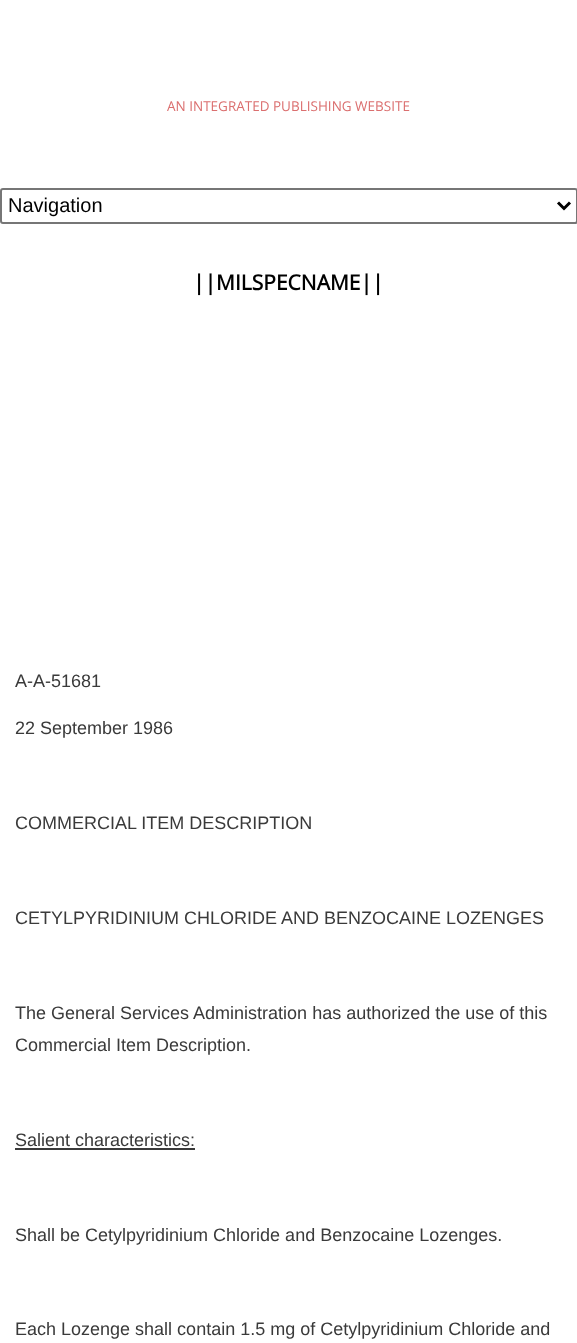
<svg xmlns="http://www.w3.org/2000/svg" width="577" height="1343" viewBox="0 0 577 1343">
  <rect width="100%" height="100%" fill="rgb(255,255,255)"/>
  <text x="167" y="111" font-family="Open Sans" font-size="13.5" fill="rgb(219,111,111)">AN INTEGRATED PUBLISHING WEBSITE</text>
  <rect x="1" y="189" width="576" height="34" rx="2" fill="none" stroke="rgb(118,118,118)" stroke-width="2"/>
  <path d="M558 202.5L564 208.5L570 202.5" fill="none" stroke="rgb(0,0,0)" stroke-width="3"/>
  <text x="8" y="212" font-family="Liberation Sans" font-size="20" fill="rgb(0,0,0)">Navigation</text>
  <text x="193" y="290" font-family="Open Sans" font-size="21" font-weight="bold" fill="rgb(0,0,0)">||MILSPECNAME||</text>
  <g font-family="Liberation Sans" font-size="18" fill="rgb(58,58,58)">
    <text x="15" y="687">A-A-51681</text>
    <text x="15" y="734">22 September 1986</text>
    <text x="15" y="829">COMMERCIAL ITEM DESCRIPTION</text>
    <text x="15" y="924">CETYLPYRIDINIUM CHLORIDE AND BENZOCAINE LOZENGES</text>
    <text>
      <tspan x="15" y="1019">The General Services Administration has authorized the use of this</tspan>
      <tspan x="15" y="1051">Commercial Item Description.</tspan>
    </text>
    <text x="15" y="1146">Salient characteristics:</text>
  </g>
  <rect x="15" y="1148" width="180" height="2" fill="rgb(58,58,58)"/>
  <g font-family="Liberation Sans" font-size="18" fill="rgb(58,58,58)">
    <text x="15" y="1241">Shall be Cetylpyridinium Chloride and Benzocaine Lozenges.</text>
    <text x="15" y="1335">Each Lozenge shall contain 1.5 mg of Cetylpyridinium Chloride and</text>
  </g>
</svg>
